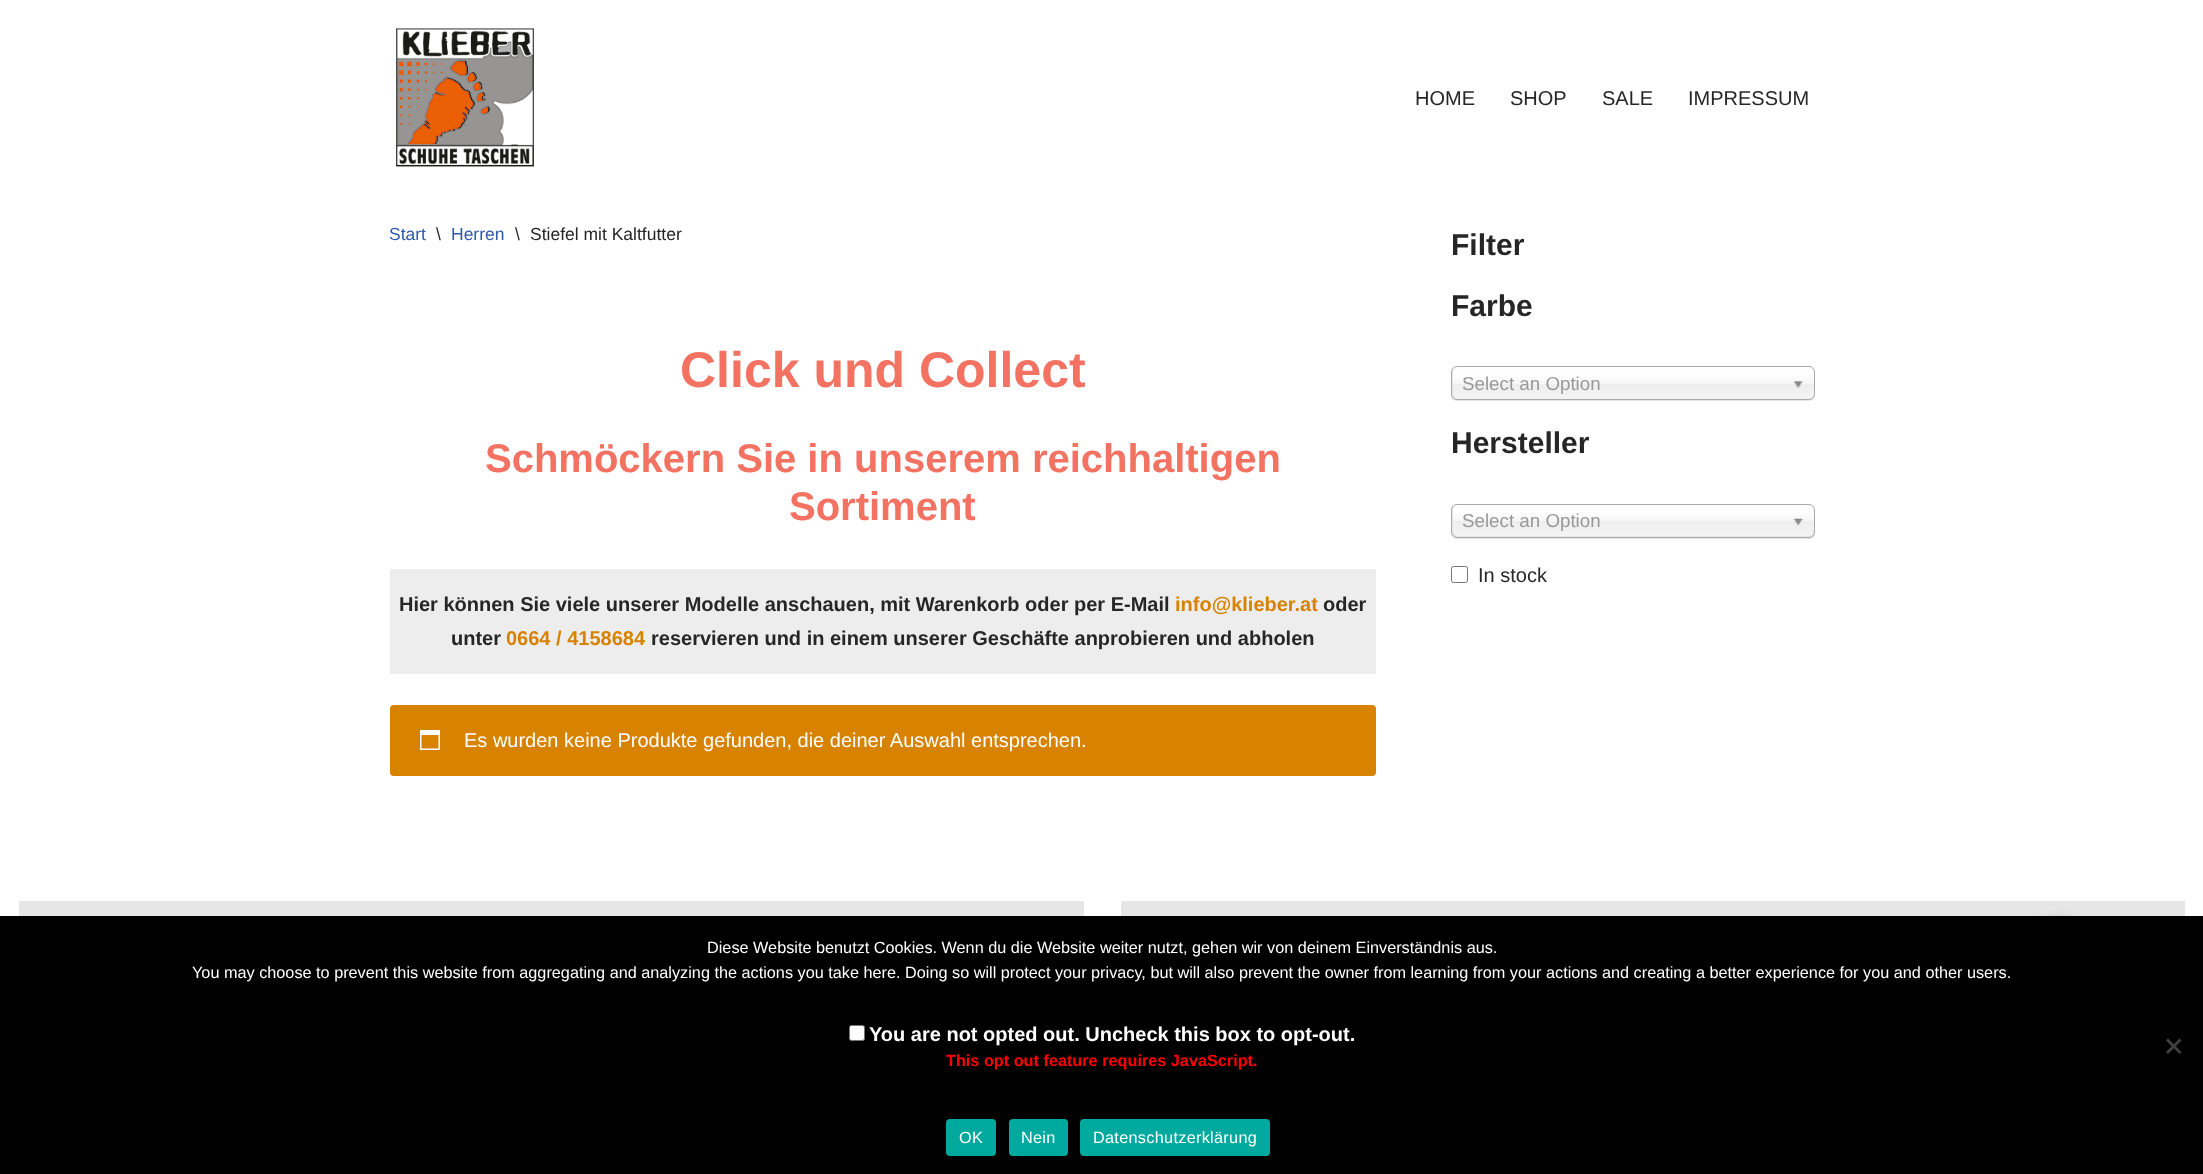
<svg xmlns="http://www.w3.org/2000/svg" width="2203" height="1174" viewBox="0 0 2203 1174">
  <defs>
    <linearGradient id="g1" gradientUnits="userSpaceOnUse" x1="1633" y1="368" x2="1633" y2="399"><stop offset="0.2" stop-color="rgb(255,255,255)"/><stop offset="0.5" stop-color="rgb(246,246,246)"/><stop offset="0.52" stop-color="rgb(238,238,238)"/><stop offset="1" stop-color="rgb(244,244,244)"/></linearGradient>
    <linearGradient id="g2" gradientUnits="userSpaceOnUse" x1="1633" y1="505" x2="1633" y2="536"><stop offset="0.2" stop-color="rgb(255,255,255)"/><stop offset="0.5" stop-color="rgb(246,246,246)"/><stop offset="0.52" stop-color="rgb(238,238,238)"/><stop offset="1" stop-color="rgb(244,244,244)"/></linearGradient>
  </defs>
  <rect width="100%" height="100%" fill="rgb(255,255,255)"/>
  <image x="396" y="28" width="138" height="139" href="pic1.png"/>
  <g font-family="Liberation Sans" font-size="20" fill="rgb(39,38,38)">
    <text x="1415" y="105">HOME</text>
    <text x="1510" y="105">SHOP</text>
    <text x="1602" y="105">SALE</text>
    <text x="1688" y="105">IMPRESSUM</text>
  </g>
  <text x="389" y="240" font-family="Liberation Sans" font-size="17.5" fill="rgb(47,90,174)">Start</text>
  <text x="436" y="240" font-family="Liberation Sans" font-size="17.5" fill="rgb(39,38,38)">\</text>
  <text x="451" y="240" font-family="Liberation Sans" font-size="17.5" fill="rgb(47,90,174)">Herren</text>
  <g font-family="Liberation Sans" font-size="17.5" fill="rgb(39,38,38)">
    <text x="515" y="240">\</text>
    <text x="530" y="240">Stiefel mit Kaltfutter</text>
  </g>
  <text x="680" y="387" font-family="Liberation Sans" font-size="50" font-weight="bold" fill="rgb(243,114,98)">Click und Collect</text>
  <g font-family="Liberation Sans" font-size="40" font-weight="bold" fill="rgb(243,114,98)">
    <text x="485" y="472">Schmöckern Sie in unserem reichhaltigen</text>
    <text x="789" y="520">Sortiment</text>
  </g>
  <rect x="390" y="569" width="986" height="105" fill="rgb(237,237,237)"/>
  <text x="399" y="611" font-family="Liberation Sans" font-size="20" font-weight="bold" fill="rgb(39,38,38)">Hier können Sie viele unserer Modelle anschauen, mit Warenkorb oder per E-Mail</text>
  <text x="1175" y="611" font-family="Liberation Sans" font-size="20" font-weight="bold" fill="rgb(216,130,2)">info@klieber.at</text>
  <g font-family="Liberation Sans" font-size="20" font-weight="bold" fill="rgb(39,38,38)">
    <text x="1323" y="611">oder</text>
    <text x="451" y="645">unter</text>
  </g>
  <text x="506" y="645" font-family="Liberation Sans" font-size="20" font-weight="bold" fill="rgb(216,130,2)">0664 / 4158684</text>
  <text x="651" y="645" font-family="Liberation Sans" font-size="20" font-weight="bold" fill="rgb(39,38,38)">reservieren und in einem unserer Geschäfte anprobieren und abholen</text>
  <rect x="390" y="705" width="986" height="71" rx="4" fill="rgb(216,130,2)"/>
  <image x="420" y="730" width="20" height="20" href="pic2.png"/>
  <text x="464" y="747" font-family="Liberation Sans" font-size="20" fill="rgb(255,255,255)">Es wurden keine Produkte gefunden, die deiner Auswahl entsprechen.</text>
  <g font-family="Liberation Sans" font-size="30" font-weight="bold" fill="rgb(39,38,38)">
    <text x="1451" y="255">Filter</text>
    <text x="1451" y="316">Farbe</text>
  </g>
  <rect x="1451" y="368" width="364" height="33" rx="6" fill="rgba(0,0,0,0.1)" filter="blur(0.5px)"/>
  <rect x="1453" y="368" width="361" height="31" rx="5" fill="url(#g1)"/>
  <rect x="1451.5" y="366.5" width="363" height="33" rx="5.5" fill="none" stroke="rgb(170,170,170)"/>
  <text x="1462" y="390" font-family="Liberation Sans" font-size="18.75" fill="rgb(153,153,153)">Select an Option</text>
  <image x="1793" y="381" width="10" height="7" href="pic3.png"/>
  <text x="1451" y="453" font-family="Liberation Sans" font-size="30" font-weight="bold" fill="rgb(39,38,38)">Hersteller</text>
  <rect x="1451" y="505" width="364" height="34" rx="6" fill="rgba(0,0,0,0.1)" filter="blur(0.5px)"/>
  <rect x="1453" y="505" width="361" height="31" rx="5" fill="url(#g2)"/>
  <rect x="1451.5" y="504.5" width="363" height="33" rx="5.5" fill="none" stroke="rgb(170,170,170)"/>
  <text x="1462" y="527" font-family="Liberation Sans" font-size="18.75" fill="rgb(153,153,153)">Select an Option</text>
  <image x="1793" y="518" width="10" height="8" href="pic4.png"/>
  <rect x="1451.5" y="566.5" width="16" height="16" rx="2" fill="none" stroke="rgb(118,118,118)"/>
  <text x="1478" y="582" font-family="Liberation Sans" font-size="20" fill="rgb(39,38,38)">In stock</text>
  <rect x="19" y="901" width="1065" height="15" fill="rgb(230,230,230)"/>
  <rect x="1121" y="901" width="1064" height="15" fill="rgb(230,230,230)"/>
  <rect x="2031" y="918" width="55" height="55" rx="27.5" fill="rgba(0,0,0,0.2)" filter="blur(4px)"/>
  <rect x="0" y="916" width="2203" height="258" fill="rgb(0,0,0)"/>
  <g font-family="Liberation Sans" font-size="16.25" fill="rgb(255,255,255)">
    <text x="707" y="953">Diese Website benutzt Cookies. Wenn du die Website weiter nutzt, gehen wir von deinem Einverständnis aus.</text>
    <text x="192" y="978">You may choose to prevent this website from aggregating and analyzing the actions you take here. Doing so will protect your privacy, but will also prevent the owner from learning from your actions and creating a better experience for you and other users.</text>
  </g>
  <rect x="849.5" y="1025.5" width="15" height="15" rx="2" fill="rgb(255,255,255)" stroke="rgb(118,118,118)"/>
  <text x="869" y="1041" font-family="Liberation Sans" font-size="20" font-weight="bold" fill="rgb(255,255,255)">You are not opted out. Uncheck this box to opt-out.</text>
  <text x="946" y="1066" font-family="Liberation Sans" font-size="16.25" font-weight="bold" fill="rgb(255,0,0)">This opt out feature requires JavaScript.</text>
  <path d="M2179.5 1038.5L2181.5 1040.5L2168 1054L2166 1052Z" fill="rgb(64,64,64)"/>
  <path d="M2166 1040.5L2168 1038.5L2181.5 1052L2179.5 1054Z" fill="rgb(64,64,64)"/>
  <rect x="946" y="1119" width="50" height="37" rx="4" fill="rgb(0,169,157)"/>
  <text x="959" y="1143" font-family="Liberation Sans" font-size="16.25" letter-spacing="0.3" fill="rgb(255,255,255)">OK</text>
  <rect x="1009" y="1119" width="59" height="37" rx="4" fill="rgb(0,169,157)"/>
  <text x="1021" y="1143" font-family="Liberation Sans" font-size="16.25" letter-spacing="0.3" fill="rgb(255,255,255)">Nein</text>
  <rect x="1080" y="1119" width="190" height="37" rx="4" fill="rgb(0,169,157)"/>
  <text x="1093" y="1143" font-family="Liberation Sans" font-size="16.25" letter-spacing="0.3" fill="rgb(255,255,255)">Datenschutzerklärung</text>
</svg>
